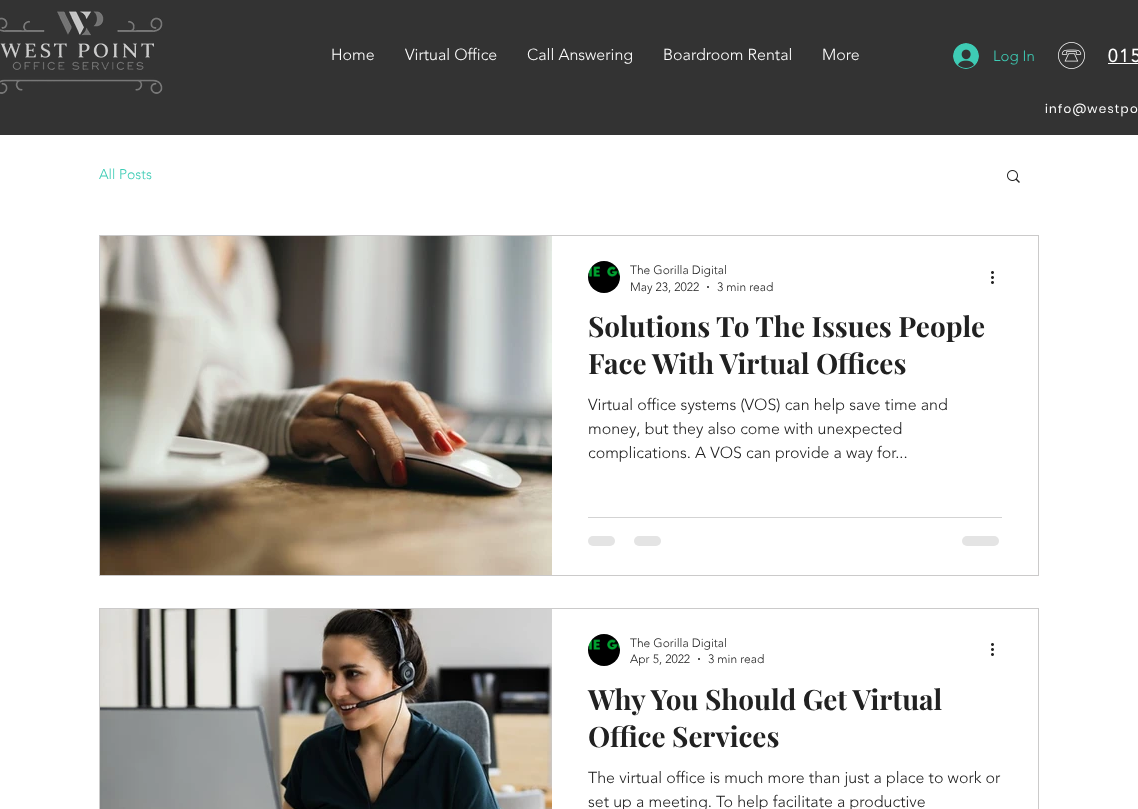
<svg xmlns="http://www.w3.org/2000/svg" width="1138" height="809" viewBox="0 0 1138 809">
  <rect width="100%" height="100%" fill="rgb(255,255,255)"/>
  <rect x="0" y="0" width="1138" height="135" fill="rgb(51,51,51)"/>
  <image x="0" y="11" width="163" height="83" href="pic1.png"/>
  <g font-family="'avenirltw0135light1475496'" font-size="16" font-weight="300" fill="rgb(255,255,255)">
    <text x="331" y="60">Home</text>
    <text x="405" y="60">Virtual Office</text>
    <text x="527" y="60">Call Answering</text>
    <text x="663" y="60">Boardroom Rental</text>
    <text x="822" y="60">More</text>
  </g>
  <image x="953" y="43" width="26" height="26" href="pic2.png"/>
  <text x="993" y="61" font-family="'avenirltw0135light1475496'" font-size="15" font-weight="300" fill="rgb(62,204,181)">Log In</text>
  <image x="1058" y="42" width="27" height="27" href="pic3.png"/>
  <text x="1108" y="62" font-family="'avenirltw0135light1475496'" font-size="18" font-weight="bold" letter-spacing="2" fill="rgb(255,255,255)">015</text>
  <rect x="1108" y="63" width="30" height="1" fill="rgb(255,255,255)"/>
  <text x="1045" y="113" font-family="Poppins" font-size="12" letter-spacing="1.25" fill="rgb(255,255,255)">info@westpo</text>
  <text x="99" y="179" font-family="'avenirltw0135light1475496'" font-size="14" font-weight="300" fill="rgb(62,204,181)">All Posts</text>
  <image x="1007" y="170" width="13" height="13" href="pic4.png"/>
  <rect x="99.5" y="235.5" width="939" height="340" fill="none" stroke="rgb(203,202,202)"/>
  <image x="100" y="236" width="452" height="339" href="pic5.png"/>
  <image x="588" y="261" width="32" height="32" href="pic6.png"/>
  <g font-family="'avenirltw0135light1475496'" font-size="12" font-weight="300" fill="rgb(33,33,33)">
    <text>
      <tspan x="630" y="274">The Gorilla Digital</tspan>
      <tspan x="630" y="291">May 23, 2022</tspan>
    </text>
  </g>
  <circle cx="708" cy="287" r="1" fill="rgb(33,33,33)"/>
  <text x="717" y="291" font-family="'avenirltw0135light1475496'" font-size="12" font-weight="300" fill="rgb(33,33,33)">3 min read</text>
  <image x="991" y="271" width="3" height="13" href="pic7.png"/>
  <g font-family="Playfair Display" font-size="28" font-weight="bold" fill="rgb(33,33,33)">
    <text>
      <tspan x="588" y="337">Solutions To The Issues People</tspan>
      <tspan x="588" y="374">Face With Virtual Offices</tspan>
    </text>
  </g>
  <g font-family="'avenirltw0135light1475496'" font-size="16" font-weight="300" fill="rgb(33,33,33)">
    <text>
      <tspan x="588" y="410">Virtual office systems (VOS) can help save time and</tspan>
      <tspan x="588" y="434">money, but they also come with unexpected</tspan>
      <tspan x="588" y="458">complications. A VOS can provide a way for...</tspan>
    </text>
  </g>
  <rect x="588" y="517" width="414" height="1" fill="rgb(211,211,211)"/>
  <rect x="588" y="536" width="27" height="10" rx="5" fill="rgb(228,228,228)"/>
  <rect x="634" y="536" width="27" height="10" rx="5" fill="rgb(228,228,228)"/>
  <rect x="962" y="536" width="37" height="10" rx="5" fill="rgb(228,228,228)"/>
  <rect x="99.5" y="608.5" width="939" height="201" fill="none" stroke="rgb(203,202,202)"/>
  <image x="100" y="609" width="452" height="200" href="pic8.png"/>
  <image x="588" y="634" width="32" height="32" href="pic6.png"/>
  <g font-family="'avenirltw0135light1475496'" font-size="12" font-weight="300" fill="rgb(33,33,33)">
    <text>
      <tspan x="630" y="647">The Gorilla Digital</tspan>
      <tspan x="630" y="663">Apr 5, 2022</tspan>
    </text>
  </g>
  <circle cx="699" cy="659" r="1" fill="rgb(33,33,33)"/>
  <text x="708" y="663" font-family="'avenirltw0135light1475496'" font-size="12" font-weight="300" fill="rgb(33,33,33)">3 min read</text>
  <image x="991" y="643" width="3" height="13" href="pic7.png"/>
  <g font-family="Playfair Display" font-size="28" font-weight="bold" fill="rgb(33,33,33)">
    <text>
      <tspan x="588" y="710">Why You Should Get Virtual</tspan>
      <tspan x="588" y="747">Office Services</tspan>
    </text>
  </g>
  <g font-family="'avenirltw0135light1475496'" font-size="16" font-weight="300" fill="rgb(33,33,33)">
    <text>
      <tspan x="588" y="783">The virtual office is much more than just a place to work or</tspan>
      <tspan x="588" y="807">set up a meeting. To help facilitate a productive</tspan>
    </text>
  </g>
</svg>
